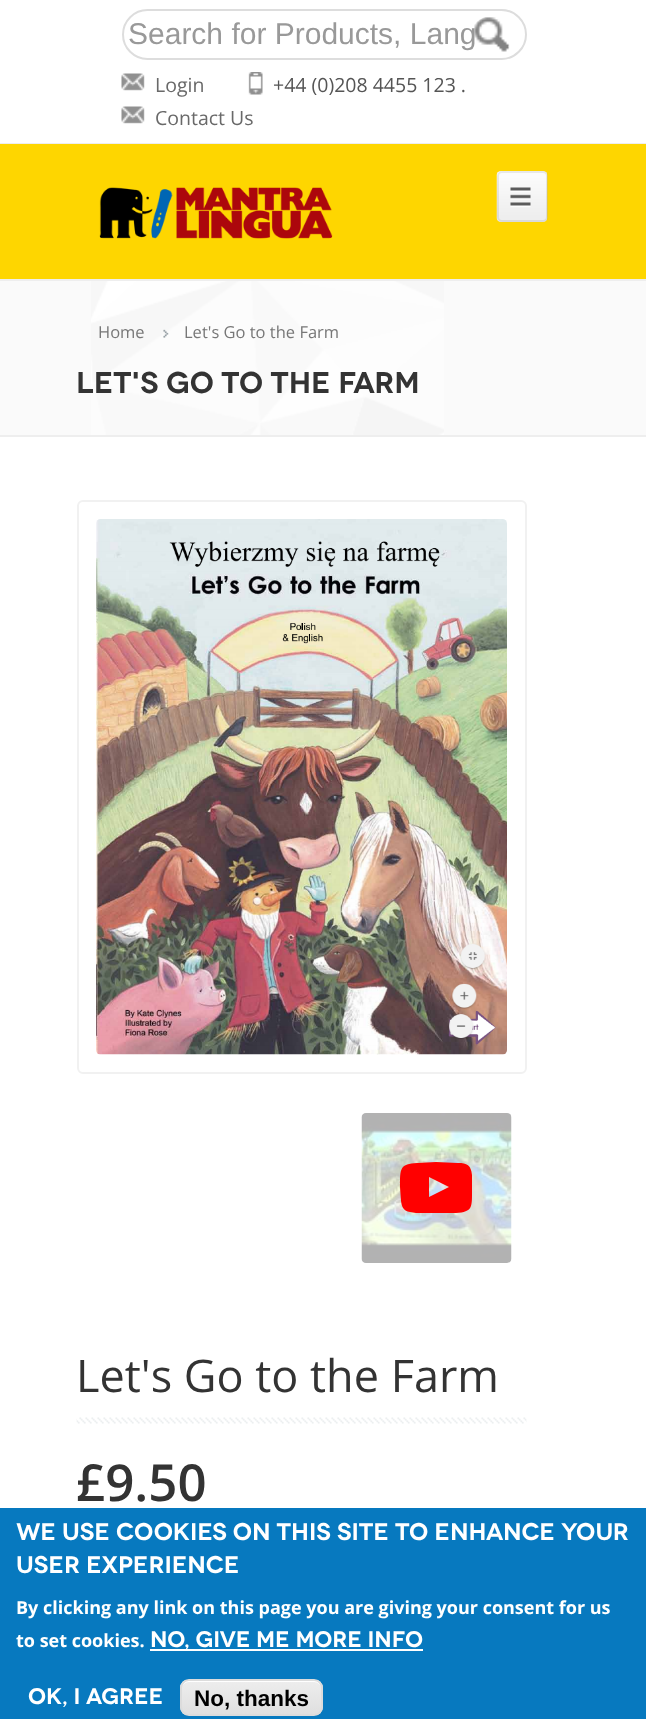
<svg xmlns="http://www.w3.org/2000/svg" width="646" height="1719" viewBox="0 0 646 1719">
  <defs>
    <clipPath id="clip1"><rect x="180" y="1679" width="143" height="37" rx="9"/></clipPath>
    <linearGradient id="g1" gradientUnits="userSpaceOnUse" x1="251" y1="1680" x2="251" y2="1715"><stop offset="0.05" stop-color="rgb(237,237,237)"/><stop offset="1" stop-color="rgb(223,223,223)"/></linearGradient>
  </defs>
  <rect width="100%" height="100%" fill="rgb(255,255,255)"/>
  <rect x="0" y="143" width="646" height="1" fill="rgb(238,238,238)"/>
  <rect x="123" y="10" width="403" height="49" rx="24.5" fill="none" stroke="rgb(221,221,221)" stroke-width="2"/>
  <text x="128" y="44" font-family="Liberation Sans" font-size="30" fill="rgb(153,153,153)">Search for Products, Lang</text>
  <image x="474" y="17" width="36" height="35" href="pic1.png"/>
  <image x="121" y="73" width="24" height="18" href="pic2.png"/>
  <text x="155" y="92" font-family="Open Sans" font-size="19.5" fill="rgb(105,105,105)">Login</text>
  <image x="248" y="72" width="15" height="23" href="pic3.png"/>
  <text x="273" y="92" font-family="Open Sans" font-size="19.5" fill="rgb(85,85,85)">+44 (0)208 4455 123 .</text>
  <image x="121" y="106" width="24" height="18" href="pic2.png"/>
  <text x="155" y="125" font-family="Open Sans" font-size="19.5" fill="rgb(105,105,105)">Contact Us</text>
  <rect x="0" y="144" width="646" height="135" fill="rgb(254,214,0)"/>
  <image x="99" y="187" width="234" height="52" href="pic4.png"/>
  <image x="496" y="171" width="52" height="51" href="pic5.png"/>
  <rect x="498" y="172" width="49" height="49" rx="4" fill="none" stroke="rgba(0,0,0,0.08)" stroke-width="2"/>
  <rect x="0" y="281" width="646" height="154" fill="rgb(250,250,250)"/>
  <image x="91" y="281" width="353" height="154" href="pic6.png"/>
  <rect x="0" y="279" width="646" height="2" fill="rgb(238,238,238)"/>
  <rect x="0" y="435" width="646" height="2" fill="rgb(238,238,238)"/>
  <text x="98" y="338" font-family="Open Sans" font-size="16.5" fill="rgb(119,119,119)">Home</text>
  <image x="163" y="329" width="6" height="9" href="pic7.png"/>
  <text x="184" y="338" font-family="Open Sans" font-size="16.5" fill="rgb(119,119,119)">Let's Go to the Farm</text>
  <text x="76" y="393" font-family="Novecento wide" font-size="30" font-weight="600" fill="rgb(51,51,51)">Let's Go to the Farm</text>
  <rect x="78" y="501" width="448" height="572" rx="5" fill="none" stroke="rgb(241,241,241)" stroke-width="2"/>
  <image x="96" y="519" width="411" height="536" href="pic8.png"/>
  <image x="361" y="1113" width="151" height="150" href="pic9.png"/>
  <path d="M429 1197L449 1187L429 1177ZM436 1162L458 1163C467 1163 471 1165 472 1175V1189C472 1207 473 1212 456 1213H436H416C407 1212 402 1211 401 1201L400 1187C400 1168 400 1164 417 1163Z" fill="rgb(255,0,0)"/>
  <image x="76" y="1417" width="451" height="7" href="pic10.png"/>
  <text x="76" y="1392" font-family="Open Sans" font-size="45" fill="rgb(51,51,51)">Let's Go to the Farm</text>
  <text x="76" y="1501" font-family="Open Sans" font-size="51" font-weight="600" fill="rgb(51,51,51)">£9.50</text>
  <rect x="0" y="1508" width="646" height="211" fill="rgb(7,121,191)"/>
  <g font-family="Novecento wide" font-size="24" font-weight="600" fill="rgb(255,255,255)">
    <text>
      <tspan x="16" y="1540">We use cookies on this site to enhance your</tspan>
      <tspan x="16" y="1573">user experience</tspan>
    </text>
  </g>
  <g font-family="Open Sans" font-size="18" font-weight="bold" fill="rgb(255,255,255)">
    <text>
      <tspan x="16" y="1614">By clicking any link on this page you are giving your consent for us</tspan>
      <tspan x="16" y="1647">to set cookies.</tspan>
    </text>
  </g>
  <rect x="150" y="1649" width="273" height="2" fill="rgb(255,255,255)"/>
  <g font-family="Novecento wide" font-size="22.5" font-weight="600" fill="rgb(255,255,255)">
    <text x="150" y="1647">No, give me more info</text>
    <text x="28" y="1704">OK, I agree</text>
  </g>
  <g clip-path="url(#clip1)">
    <rect x="180" y="1680" width="143" height="35" fill="url(#g1)"/>
  </g>
  <path d="M189 1682H314C318 1682 321 1685 321 1689C321 1675 300 1680 292 1680H210C203 1680 182 1675 182 1689C182 1685 185 1682 189 1682Z" fill="rgb(255,255,255)"/>
  <rect x="181" y="1680" width="141" height="35" rx="8" fill="none" stroke="rgb(220,220,220)" stroke-width="2"/>
  <text x="194" y="1706" font-family="Liberation Sans" font-size="22.5" font-weight="bold" fill="rgb(0,0,0)">No, thanks</text>
</svg>
